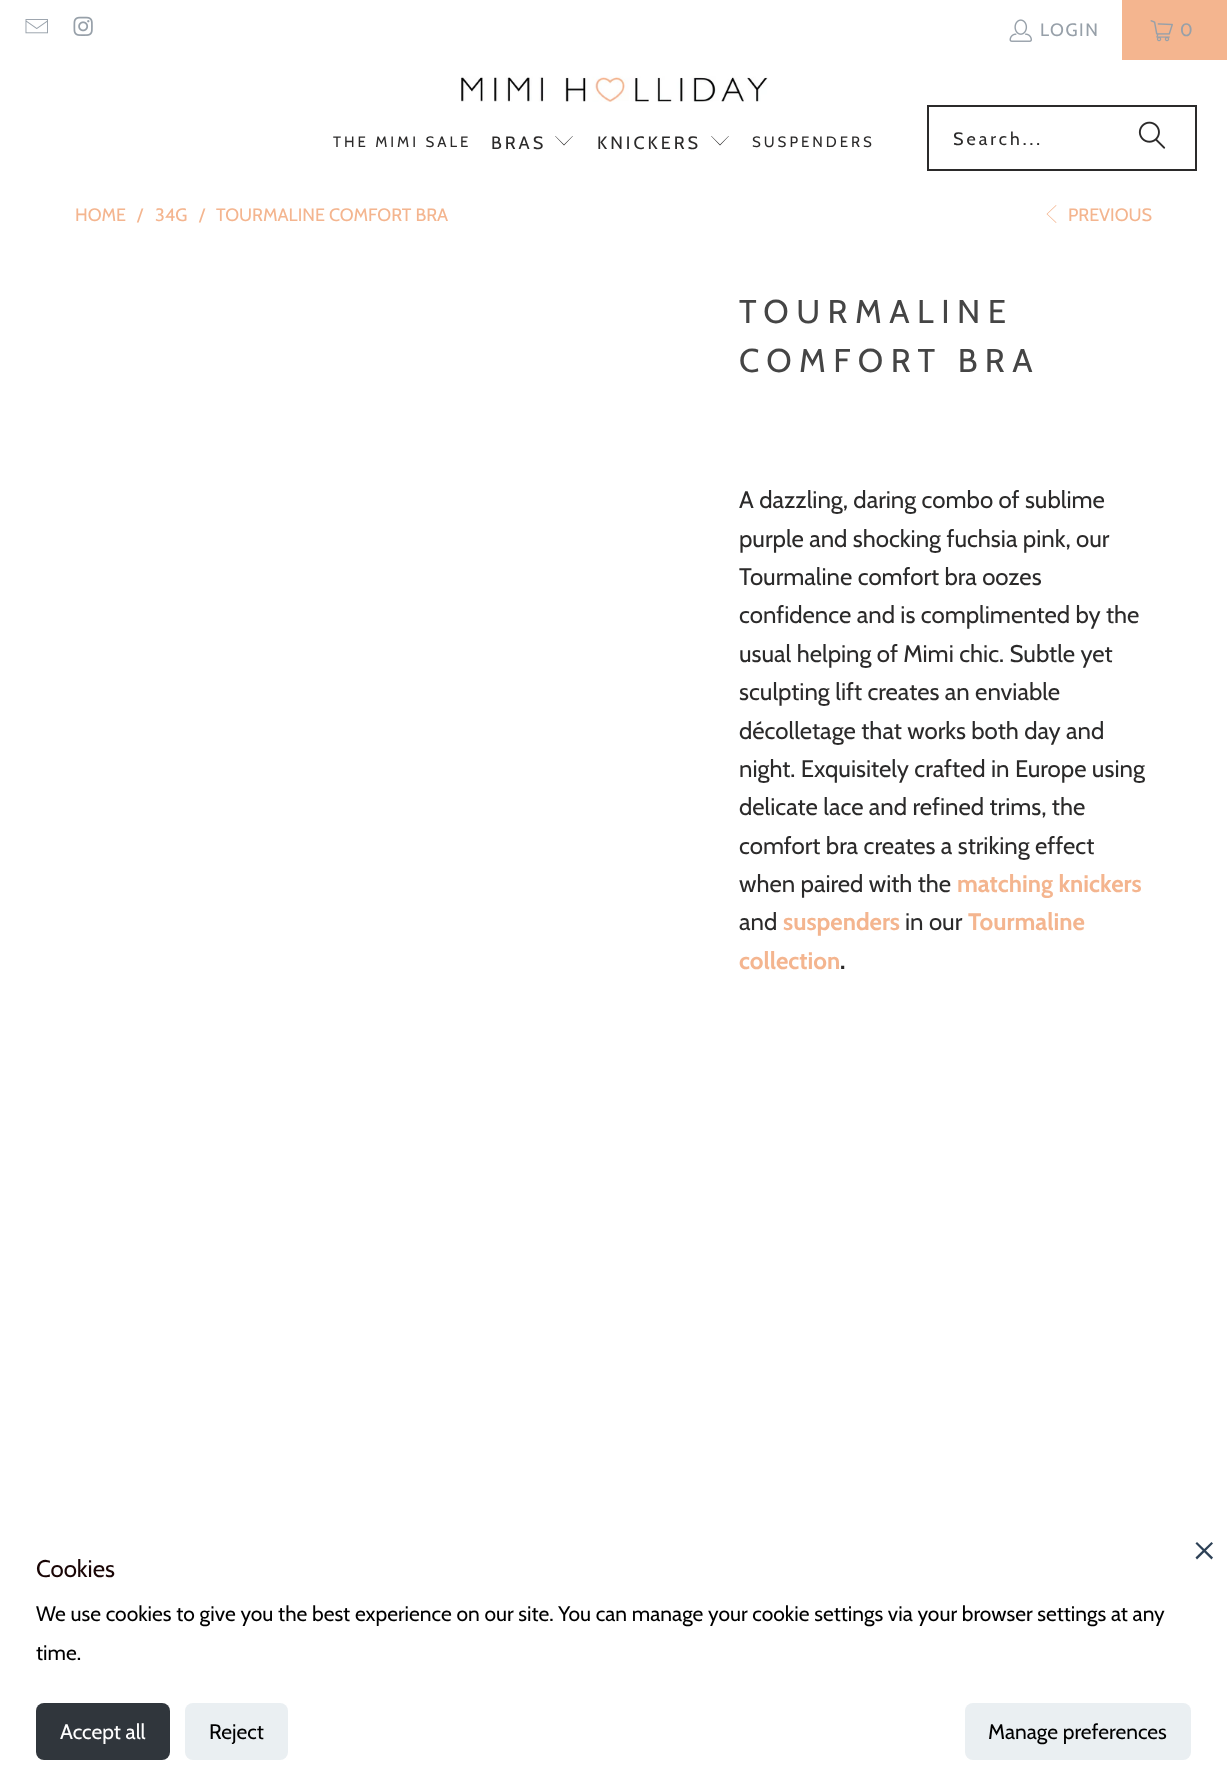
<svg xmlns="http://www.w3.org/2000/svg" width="1227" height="1781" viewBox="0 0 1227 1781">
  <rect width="100%" height="100%" fill="rgb(255,255,255)"/>
  <image x="25" y="19" width="23" height="15" href="pic1.png"/>
  <image x="73" y="16" width="20" height="20" href="pic2.png"/>
  <image x="1009" y="19" width="23" height="23" href="pic3.png"/>
  <text x="1040" y="36" font-family="Cabin" font-size="18" letter-spacing="1.5" fill="rgb(151,160,169)">LOGIN</text>
  <rect x="1122" y="0" width="105" height="60" fill="rgb(244,181,143)"/>
  <image x="1150" y="20" width="23" height="22" href="pic4.png"/>
  <text x="1180" y="36" font-family="Cabin" font-size="18" letter-spacing="1.5" fill="rgb(151,160,169)">0</text>
  <image x="460" y="76" width="308" height="26" href="pic5.png"/>
  <text x="333" y="147" font-family="Cabin" font-size="15" letter-spacing="3" fill="rgb(43,42,42)">THE MIMI SALE</text>
  <text x="491" y="149" font-family="Cabin" font-size="18" letter-spacing="3" fill="rgb(43,42,42)">BRAS</text>
  <path d="M564 145.5L555 136H555.5L564 144.5L572.5 136H573Z" fill="rgb(43,42,42)"/>
  <text x="597" y="149" font-family="Cabin" font-size="18" letter-spacing="3" fill="rgb(43,42,42)">KNICKERS</text>
  <path d="M720 145.5L711 136H711.5L720 144.5L728.5 136H729Z" fill="rgb(43,42,42)"/>
  <text x="752" y="147" font-family="Cabin" font-size="15" letter-spacing="3" fill="rgb(43,42,42)">SUSPENDERS</text>
  <rect x="928" y="106" width="268" height="64" fill="none" stroke="rgb(43,42,42)" stroke-width="2"/>
  <text x="953" y="145" font-family="Cabin" font-size="18" letter-spacing="3" fill="rgb(43,42,42)">Search...</text>
  <image x="1138" y="121" width="28" height="28" href="pic6.png"/>
  <g font-family="Cabin" font-size="18" fill="rgb(244,181,143)">
    <text x="75" y="221">HOME</text>
    <text x="137" y="221">/</text>
    <text x="155" y="221">34G</text>
    <text x="199" y="221">/</text>
    <text x="216" y="221">TOURMALINE COMFORT BRA</text>
  </g>
  <path d="M1056 223L1046.5 214L1056 205L1056.5 205.5L1047.5 214L1056.5 222.5Z" fill="rgb(244,181,143)"/>
  <text x="1068" y="221" font-family="Cabin" font-size="18" fill="rgb(244,181,143)">PREVIOUS</text>
  <g font-family="Cabin" font-size="33" letter-spacing="7.5" fill="rgb(69,69,69)">
    <text>
      <tspan x="739" y="323">TOURMALINE</tspan>
      <tspan x="739" y="372">COMFORT BRA</tspan>
    </text>
  </g>
  <g font-family="Cabin" font-size="24" fill="rgb(43,42,42)">
    <text>
      <tspan x="739" y="508">A dazzling, daring combo of sublime</tspan>
      <tspan x="739" y="547">purple and shocking fuchsia pink, our</tspan>
      <tspan x="739" y="585">Tourmaline comfort bra oozes</tspan>
      <tspan x="739" y="623">confidence and is complimented by the</tspan>
      <tspan x="739" y="662">usual helping of Mimi chic. Subtle yet</tspan>
      <tspan x="739" y="700">sculpting lift creates an enviable</tspan>
      <tspan x="739" y="739">décolletage that works both day and</tspan>
      <tspan x="739" y="777">night. Exquisitely crafted in Europe using</tspan>
      <tspan x="739" y="815">delicate lace and refined trims, the</tspan>
      <tspan x="739" y="854">comfort bra creates a striking effect</tspan>
      <tspan x="739" y="892">when paired with the</tspan>
    </text>
  </g>
  <text x="957" y="892" font-family="Cabin" font-size="24" font-weight="bold" fill="rgb(244,181,143)">matching knickers</text>
  <text x="739" y="930" font-family="Cabin" font-size="24" fill="rgb(43,42,42)">and</text>
  <text x="783" y="930" font-family="Cabin" font-size="24" font-weight="bold" fill="rgb(244,181,143)">suspenders</text>
  <text x="905" y="930" font-family="Cabin" font-size="24" fill="rgb(43,42,42)">in our</text>
  <g font-family="Cabin" font-size="24" font-weight="bold" fill="rgb(244,181,143)">
    <text x="968" y="930">Tourmaline</text>
    <text x="739" y="969">collection</text>
  </g>
  <text x="840" y="969" font-family="Cabin" font-size="24" font-weight="bold" fill="rgb(43,42,42)">.</text>
  <path d="M1211.5 1542L1213 1543.5L1197 1559.5L1195.5 1557.5Z" fill="rgb(45,65,86)"/>
  <path d="M1195.5 1543.5L1197 1542L1213 1557.5L1211.5 1559.5Z" fill="rgb(45,65,86)"/>
  <text x="36" y="1577" font-family="Cabin" font-size="24" fill="rgb(25,5,5)">Cookies</text>
  <g font-family="Cabin" font-size="21" fill="rgb(0,0,0)">
    <text>
      <tspan x="36" y="1621">We use cookies to give you the best experience on our site. You can manage your cookie settings via your browser settings at any</tspan>
      <tspan x="36" y="1660">time.</tspan>
    </text>
  </g>
  <rect x="36" y="1703" width="134" height="57" rx="8" fill="rgb(48,54,60)"/>
  <text x="60" y="1739" font-family="Cabin" font-size="21" fill="rgb(255,255,255)">Accept all</text>
  <rect x="185" y="1703" width="103" height="57" rx="8" fill="rgb(234,239,242)"/>
  <text x="209" y="1739" font-family="Cabin" font-size="21" fill="rgb(0,0,0)">Reject</text>
  <rect x="965" y="1703" width="226" height="57" rx="8" fill="rgb(234,239,242)"/>
  <text x="988" y="1739" font-family="Cabin" font-size="21" fill="rgb(0,0,0)">Manage preferences</text>
</svg>
